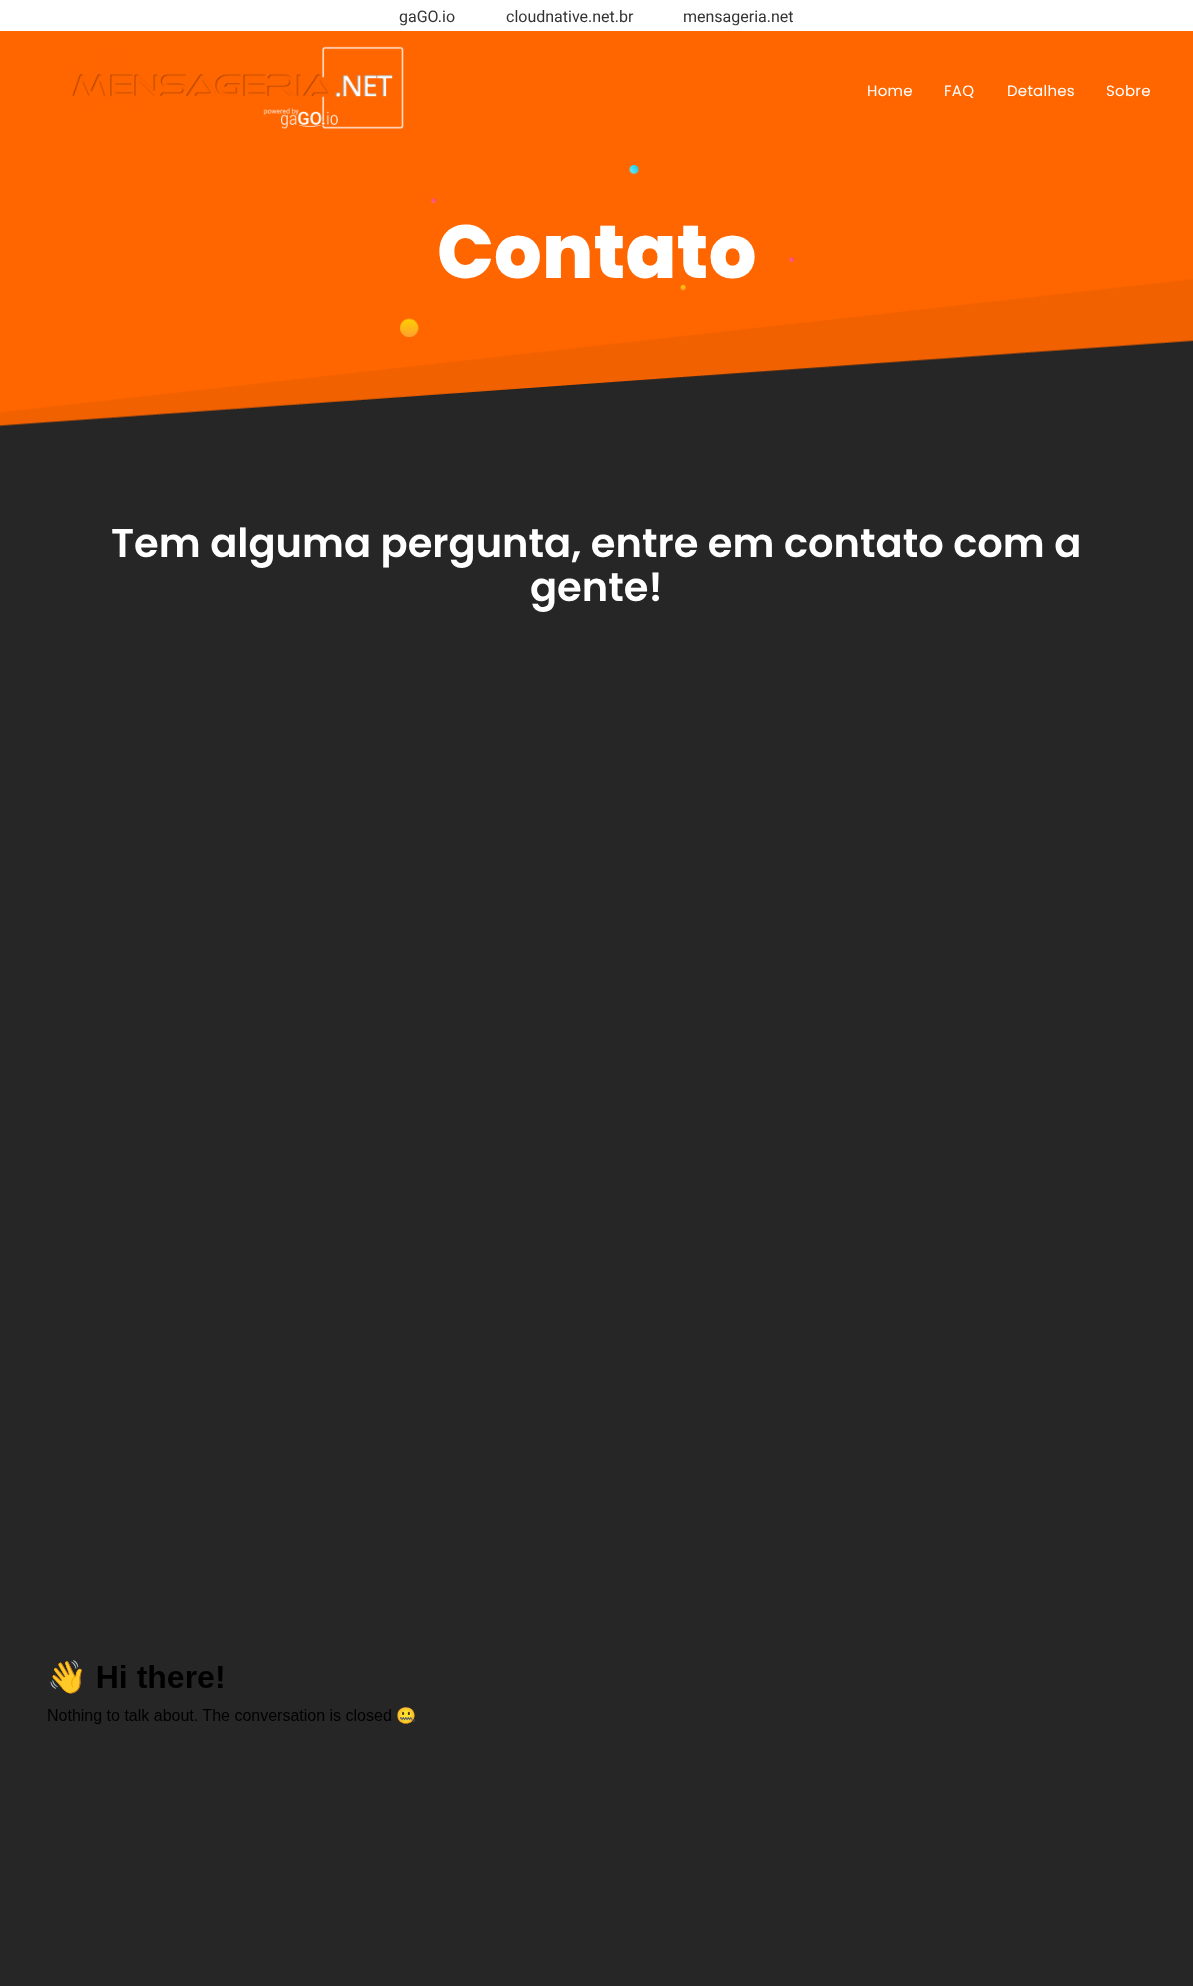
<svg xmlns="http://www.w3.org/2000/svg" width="1193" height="1986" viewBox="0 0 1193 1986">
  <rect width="100%" height="100%" fill="rgb(255,255,255)"/>
  <g font-family="Roboto" font-size="16" fill="rgb(51,51,51)">
    <text x="399" y="22">gaGO.io</text>
    <text x="506" y="22">cloudnative.net.br</text>
    <text x="683" y="22">mensageria.net</text>
  </g>
  <rect x="0" y="31" width="1193" height="20" fill="rgb(255,102,0)"/>
  <rect x="0" y="340" width="1193" height="1646" fill="rgb(38,38,38)"/>
  <image x="0" y="51" width="1193" height="376" href="pic2.png"/>
  <image x="72" y="46" width="332" height="83" href="pic1.png"/>
  <g font-family="Poppins" font-size="15" letter-spacing="0.25" fill="rgb(255,255,255)">
    <text x="867" y="96">Home</text>
    <text x="944" y="96">FAQ</text>
    <text x="1007" y="96">Detalhes</text>
    <text x="1106" y="96">Sobre</text>
  </g>
  <image x="400" y="165" width="394" height="172" href="pic3.png"/>
  <text x="437" y="278" font-family="Poppins" font-size="75" font-weight="800" letter-spacing="0.25" fill="rgb(255,255,255)">Contato</text>
  <g font-family="Poppins" font-size="40" font-weight="600" fill="rgb(255,255,255)">
    <text x="111" y="557">Tem alguma pergunta, entre em contato com a</text>
    <text x="530" y="601">gente!</text>
  </g>
  <image x="48" y="1660" width="367" height="64" href="pic4.png"/>
</svg>
